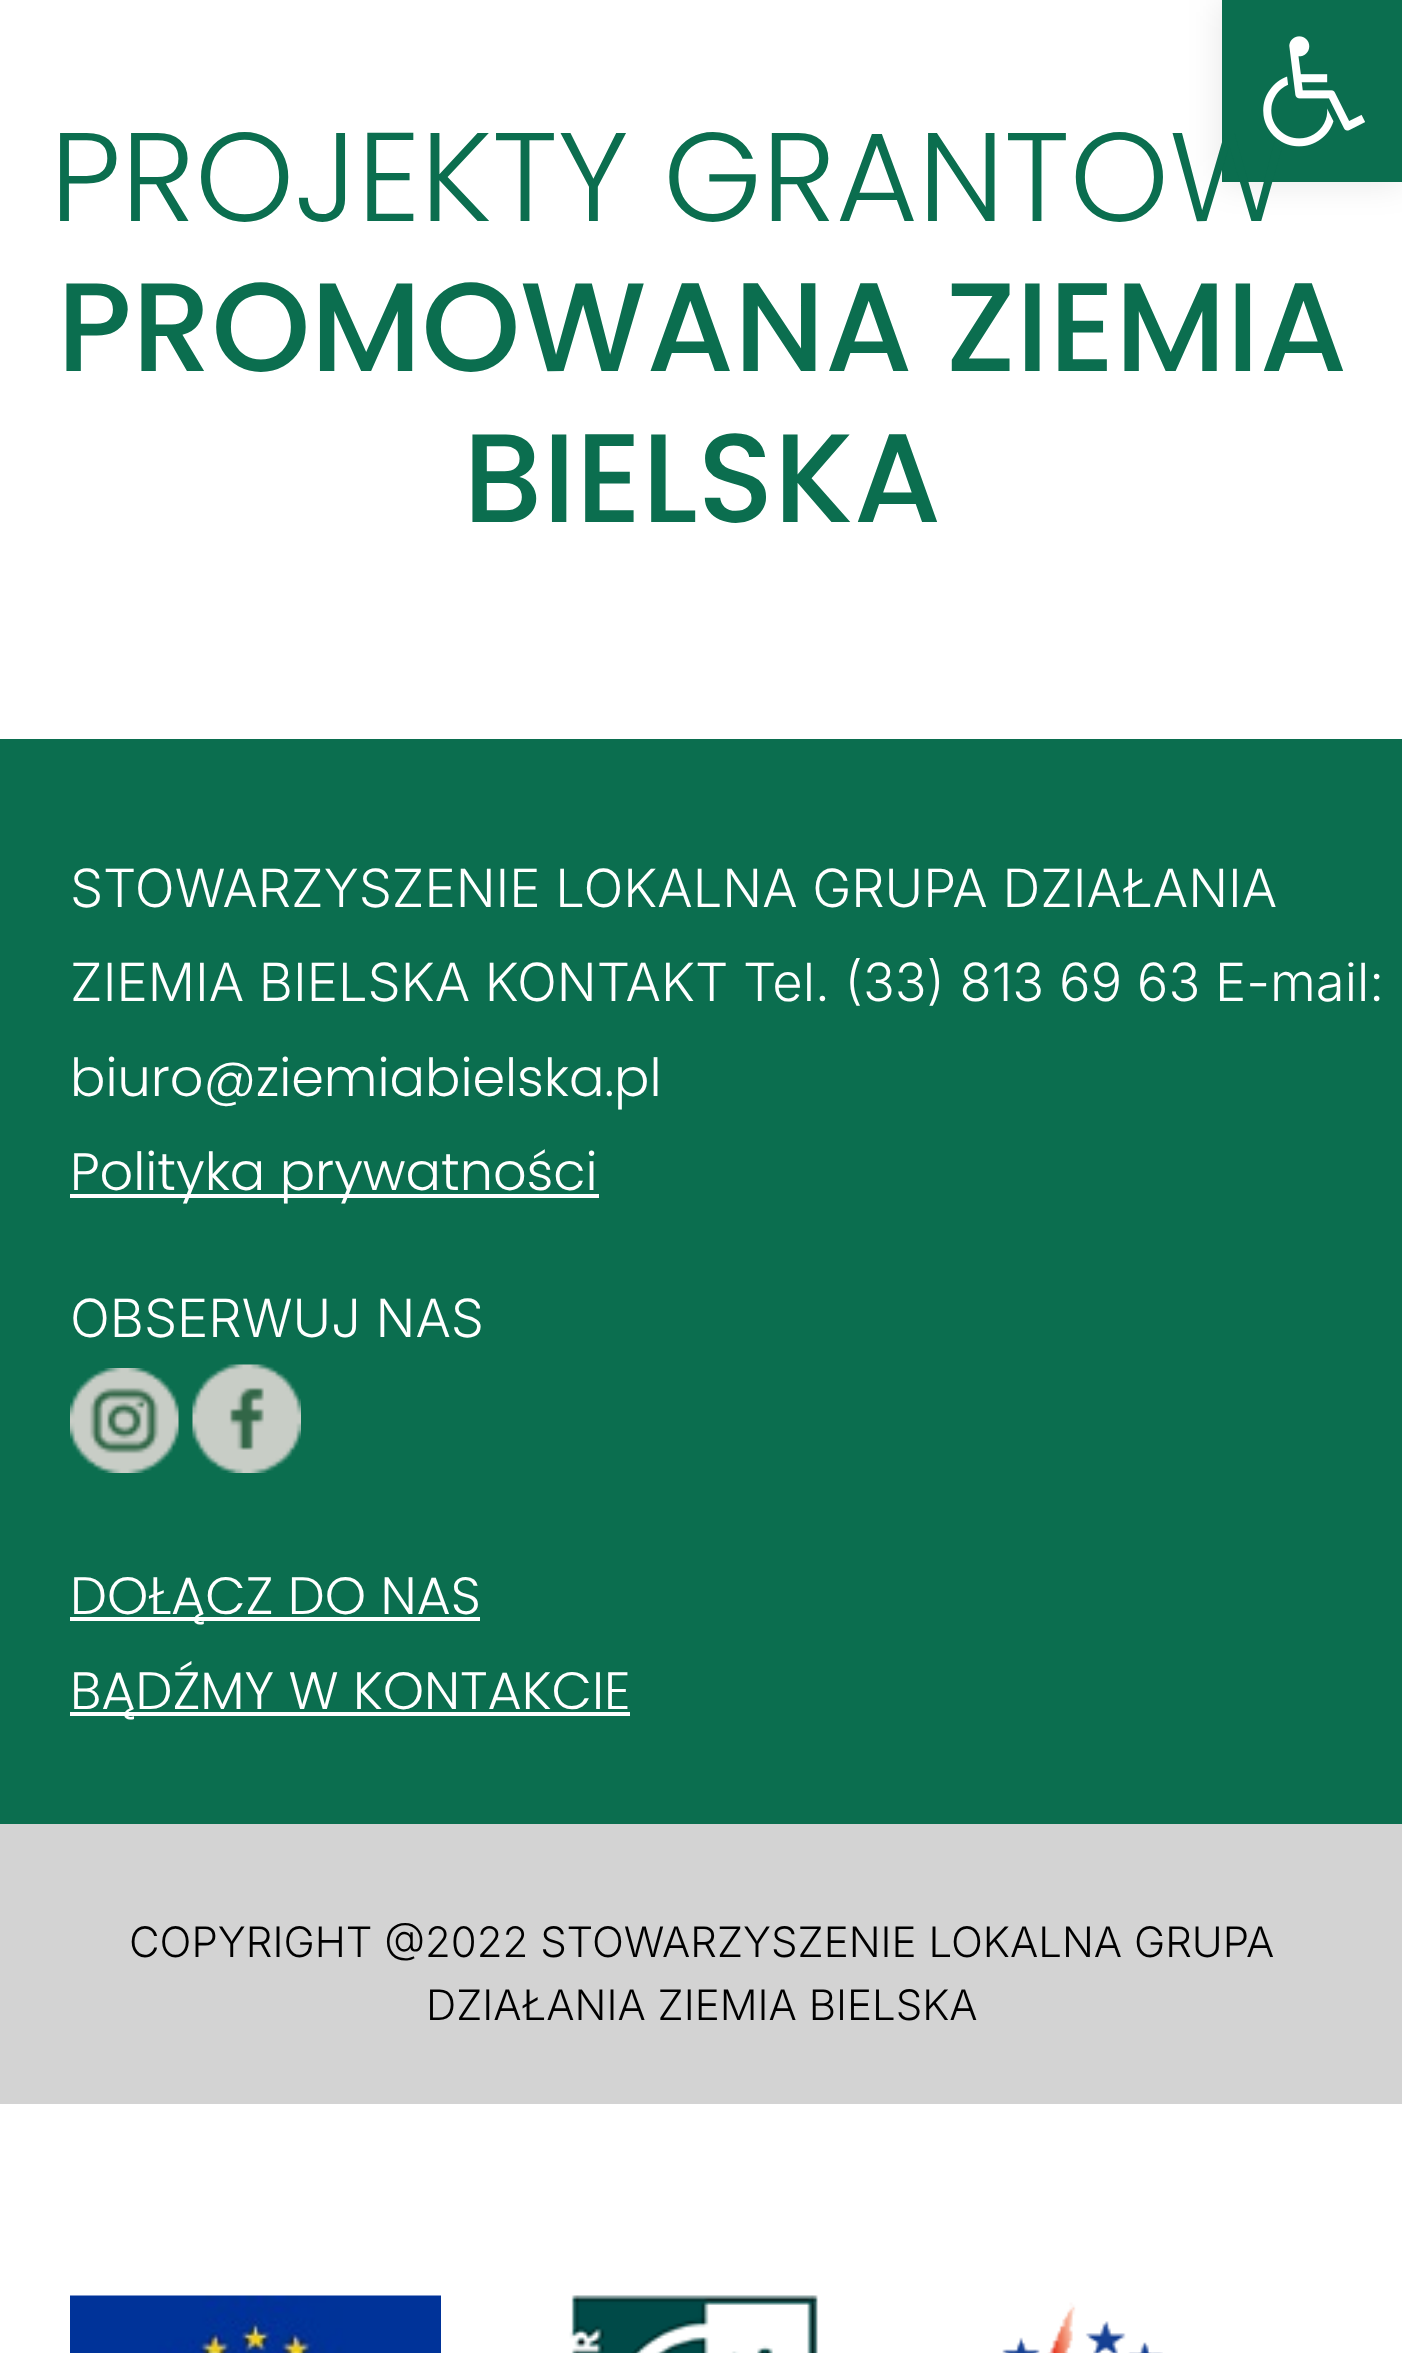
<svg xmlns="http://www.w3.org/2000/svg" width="1402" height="2353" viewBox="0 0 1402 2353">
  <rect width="100%" height="100%" fill="rgb(255,255,255)"/>
  <rect x="1222" y="0" width="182" height="182" fill="rgba(0,0,0,0.1)" filter="blur(17.5px)"/>
  <rect x="1222" y="0" width="180" height="182" fill="rgb(11,110,79)"/>
  <text x="50" y="221" font-family="Poppins" font-size="126" font-weight="300" fill="rgb(11,110,79)">PROJEKTY GRANTOW</text>
  <image x="1263" y="36" width="102" height="111" href="pic1.png"/>
  <g font-family="Poppins" font-size="126" font-weight="500" fill="rgb(11,110,79)">
    <text x="57" y="371">PROMOWANA ZIEMIA</text>
    <text x="463" y="522">BIELSKA</text>
  </g>
  <rect x="0" y="739" width="1402" height="1085" fill="rgb(11,110,79)"/>
  <g font-family="Inter" font-size="52.5" font-weight="300" fill="rgb(255,255,255)">
    <text>
      <tspan x="70" y="907">STOWARZYSZENIE LOKALNA GRUPA DZIAŁANIA</tspan>
      <tspan x="70" y="1001">ZIEMIA BIELSKA KONTAKT Tel. (33) 813 69 63 E-mail:</tspan>
    </text>
  </g>
  <text x="70" y="1096" font-family="Poppins" font-size="52.5" font-weight="300" fill="rgb(255,255,255)">biuro@ziemiabielska.pl</text>
  <rect x="70" y="1194" width="529" height="4" fill="rgb(255,255,255)"/>
  <text x="70" y="1190" font-family="Poppins" font-size="52.5" font-weight="300" fill="rgb(255,255,255)">Polityka prywatności</text>
  <text x="70" y="1337" font-family="Inter" font-size="52.5" font-weight="300" fill="rgb(255,255,255)">OBSERWUJ NAS</text>
  <image x="70" y="1368" width="109" height="105" href="pic2.png"/>
  <image x="192" y="1364" width="109" height="109" href="pic3.png"/>
  <rect x="70" y="1617" width="410" height="4" fill="rgb(255,255,255)"/>
  <text x="70" y="1614" font-family="Poppins" font-size="52.5" font-weight="300" fill="rgb(255,255,255)">DOŁĄCZ DO NAS</text>
  <rect x="70" y="1712" width="560" height="4" fill="rgb(255,255,255)"/>
  <text x="70" y="1709" font-family="Poppins" font-size="52.5" font-weight="300" fill="rgb(255,255,255)">BĄDŹMY W KONTAKCIE</text>
  <rect x="0" y="1824" width="1402" height="280" fill="rgb(211,211,211)"/>
  <g font-family="Inter" font-size="42" font-weight="300" fill="rgb(0,0,0)">
    <text x="129" y="1957">COPYRIGHT @2022 STOWARZYSZENIE LOKALNA GRUPA</text>
    <text x="426" y="2020">DZIAŁANIA ZIEMIA BIELSKA</text>
  </g>
  <image x="70" y="2295" width="371" height="58" href="pic4.png"/>
  <image x="569" y="2295" width="249" height="58" href="pic5.png"/>
  <image x="1002" y="2302" width="161" height="51" href="pic6.png"/>
</svg>
